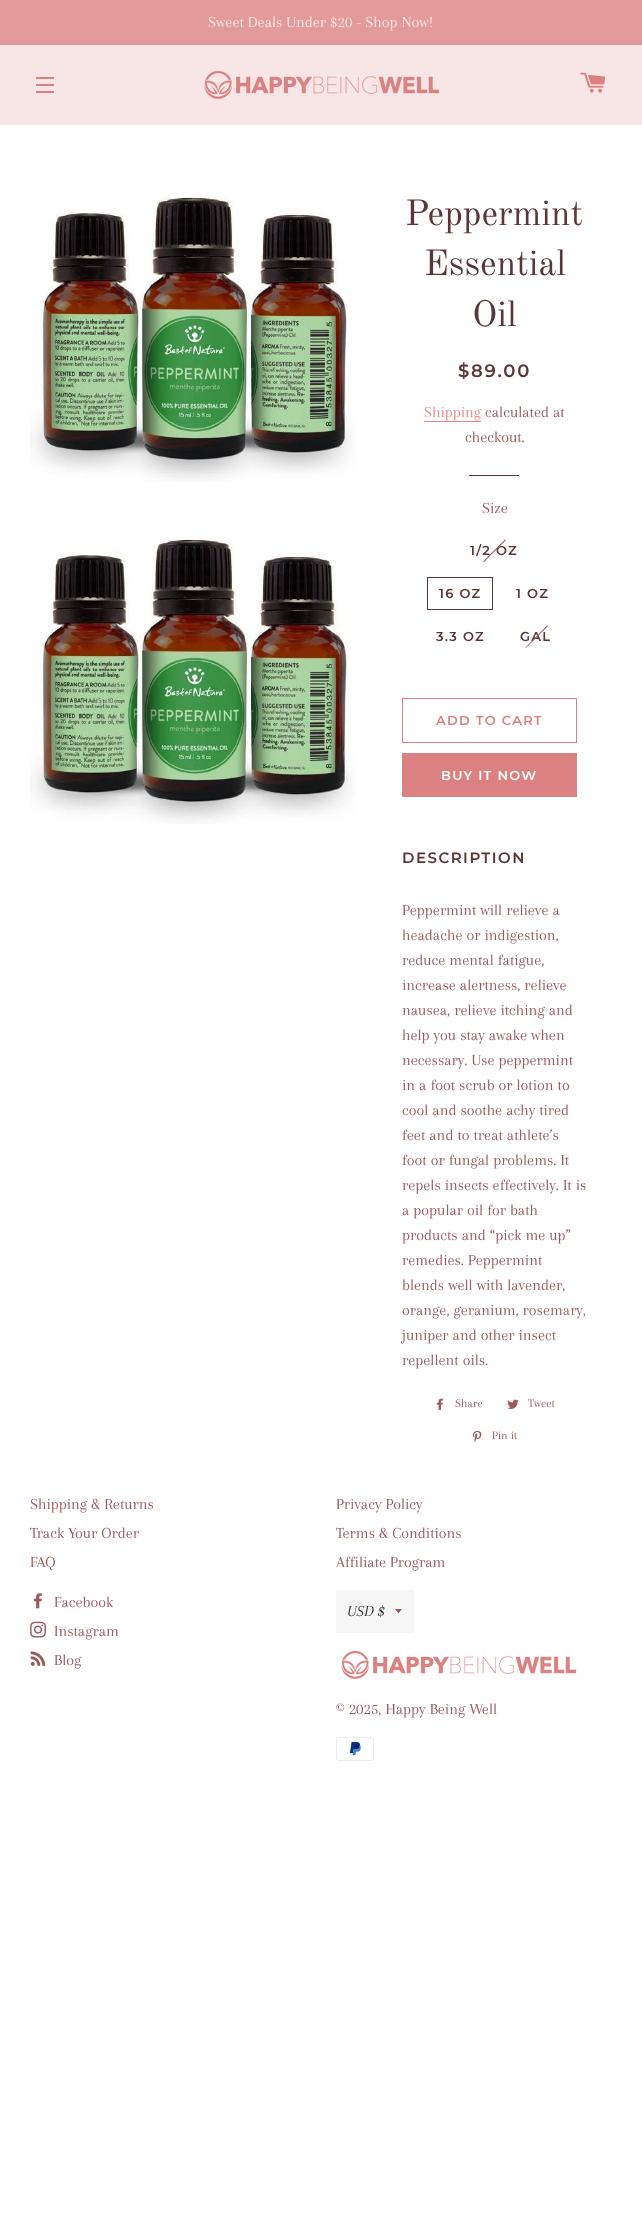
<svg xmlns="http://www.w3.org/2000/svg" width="642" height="2232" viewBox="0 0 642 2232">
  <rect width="100%" height="100%" fill="rgb(255,255,255)"/>
  <rect x="0" y="0" width="642" height="45" fill="rgb(226,154,154)"/>
  <text x="208" y="27" font-family="Arapey" font-size="16" fill="rgb(248,230,230)">Sweet Deals Under $20 - Shop Now!</text>
  <rect x="0" y="45" width="642" height="80" fill="rgb(248,230,230)"/>
  <rect x="36" y="77" width="18" height="2" fill="rgb(219,129,129)"/>
  <rect x="36" y="84" width="18" height="2" fill="rgb(219,129,129)"/>
  <rect x="36" y="91" width="18" height="2" fill="rgb(219,129,129)"/>
  <image x="204" y="70" width="236" height="29" href="pic1.png"/>
  <image x="580" y="72" width="26" height="21" href="pic2.png"/>
  <image x="30" y="155" width="327" height="327" href="pic3.png"/>
  <image x="30" y="497" width="327" height="327" href="pic4.png"/>
  <g font-family="Old Standard TT" font-size="36" fill="rgb(92,54,54)">
    <text x="405" y="225">Peppermint</text>
    <text x="424" y="275">Essential</text>
    <text x="472" y="326">Oil</text>
  </g>
  <text x="458" y="377" font-family="Montserrat" font-size="18" font-weight="600" letter-spacing="1.75" fill="rgb(92,54,54)">$89.00</text>
  <text x="424" y="417" font-family="Arapey" font-size="16" fill="rgb(232,137,137)">Shipping</text>
  <rect x="424" y="421" width="57" height="1" fill="rgb(232,137,137)"/>
  <g font-family="Arapey" font-size="16" fill="rgb(155,91,91)">
    <text x="485" y="417">calculated at</text>
    <text x="465" y="442">checkout.</text>
  </g>
  <rect x="469" y="475" width="50" height="1" fill="rgb(92,54,54)"/>
  <text x="482" y="513" font-family="Arapey" font-size="16" fill="rgb(155,91,91)">Size</text>
  <text x="470" y="555" font-family="Montserrat" font-size="13" font-weight="600" letter-spacing="1.25" fill="rgb(92,54,54)">1/2 OZ</text>
  <path d="M505 539.5L506 540L484 562L483 561.5Z" fill="rgb(155,91,91)"/>
  <rect x="427.5" y="577.5" width="65" height="32" fill="none" stroke="rgb(92,54,54)"/>
  <g font-family="Montserrat" font-size="13" font-weight="600" letter-spacing="1.25" fill="rgb(92,54,54)">
    <text x="439" y="598">16 OZ</text>
    <text x="516" y="598">1 OZ</text>
    <text x="436" y="641">3.3 OZ</text>
    <text x="520" y="641">GAL</text>
  </g>
  <path d="M547 625.5L548 626L526 648L525.5 647.5Z" fill="rgb(155,91,91)"/>
  <rect x="402.5" y="698.5" width="174" height="44" fill="none" stroke="rgb(219,129,129)"/>
  <text x="436" y="725" font-family="Montserrat" font-size="13" font-weight="600" letter-spacing="1.25" fill="rgb(219,129,129)">ADD TO CART</text>
  <rect x="402" y="753" width="175" height="44" fill="rgb(219,129,129)"/>
  <text x="441" y="780" font-family="Montserrat" font-size="13" font-weight="600" letter-spacing="1.25" fill="rgb(255,255,255)">BUY IT NOW</text>
  <text x="402" y="863" font-family="Montserrat" font-size="15" font-weight="600" letter-spacing="1.5" fill="rgb(92,54,54)">DESCRIPTION</text>
  <g font-family="Arapey" font-size="16" fill="rgb(155,91,91)">
    <text>
      <tspan x="402" y="915">Peppermint will relieve a</tspan>
      <tspan x="402" y="940">headache or indigestion,</tspan>
      <tspan x="402" y="965">reduce mental fatigue,</tspan>
      <tspan x="402" y="990">increase alertness, relieve</tspan>
      <tspan x="402" y="1015">nausea, relieve itching and</tspan>
      <tspan x="402" y="1040">help you stay awake when</tspan>
      <tspan x="402" y="1065">necessary. Use peppermint</tspan>
      <tspan x="402" y="1090">in a foot scrub or lotion to</tspan>
      <tspan x="402" y="1115">cool and soothe achy tired</tspan>
      <tspan x="402" y="1140">feet and to treat athlete’s</tspan>
      <tspan x="402" y="1165">foot or fungal problems. It</tspan>
      <tspan x="402" y="1190">repels insects effectively. It is</tspan>
      <tspan x="402" y="1215">a popular oil for bath</tspan>
      <tspan x="402" y="1240">products and “pick me up”</tspan>
      <tspan x="402" y="1265">remedies. Peppermint</tspan>
      <tspan x="402" y="1290">blends well with lavender,</tspan>
      <tspan x="402" y="1315">orange, geranium, rosemary,</tspan>
      <tspan x="402" y="1340">juniper and other insect</tspan>
      <tspan x="402" y="1365">repellent oils.</tspan>
    </text>
  </g>
  <image x="436" y="1398" width="7" height="12" href="pic5.png"/>
  <text x="455" y="1407" font-family="Arapey" font-size="12" fill="rgb(155,91,91)">Share</text>
  <image x="507" y="1399" width="12" height="10" href="pic6.png"/>
  <text x="528" y="1407" font-family="Arapey" font-size="12" fill="rgb(155,91,91)">Tweet</text>
  <image x="472" y="1430" width="10" height="12" href="pic7.png"/>
  <text x="492" y="1439" font-family="Arapey" font-size="12" fill="rgb(155,91,91)">Pin it</text>
  <g font-family="Arapey" font-size="16" fill="rgb(155,91,91)">
    <text>
      <tspan x="30" y="1509">Shipping &amp; Returns</tspan>
      <tspan x="30" y="1538">Track Your Order</tspan>
      <tspan x="30" y="1567">FAQ</tspan>
    </text>
    <text>
      <tspan x="336" y="1509">Privacy Policy</tspan>
      <tspan x="336" y="1538">Terms &amp; Conditions</tspan>
      <tspan x="336" y="1567">Affiliate Program</tspan>
    </text>
  </g>
  <image x="33" y="1593" width="9" height="16" href="pic8.png"/>
  <text x="54" y="1607" font-family="Arapey" font-size="16" fill="rgb(155,91,91)">Facebook</text>
  <image x="30" y="1621" width="16" height="17" href="pic9.png"/>
  <text x="54" y="1636" font-family="Arapey" font-size="16" fill="rgb(155,91,91)">Instagram</text>
  <image x="30" y="1651" width="16" height="15" href="pic10.png"/>
  <text x="54" y="1665" font-family="Arapey" font-size="16" fill="rgb(155,91,91)">Blog</text>
  <rect x="336" y="1590" width="78" height="43" fill="rgb(246,246,246)"/>
  <path d="M395 1609C399.5 1614.5 397.5 1614.5 402 1609Z" fill="rgb(155,91,91)"/>
  <text x="347" y="1616" font-family="Arapey" font-size="16" font-style="italic" fill="rgb(28,29,29)">USD $</text>
  <image x="341" y="1650" width="236" height="29" href="pic11.png"/>
  <text x="336" y="1714" font-family="Arapey" font-size="16" fill="rgb(155,91,91)">© 2025, Happy Being Well</text>
  <image x="336" y="1737" width="38" height="24" href="pic12.png"/>
</svg>
